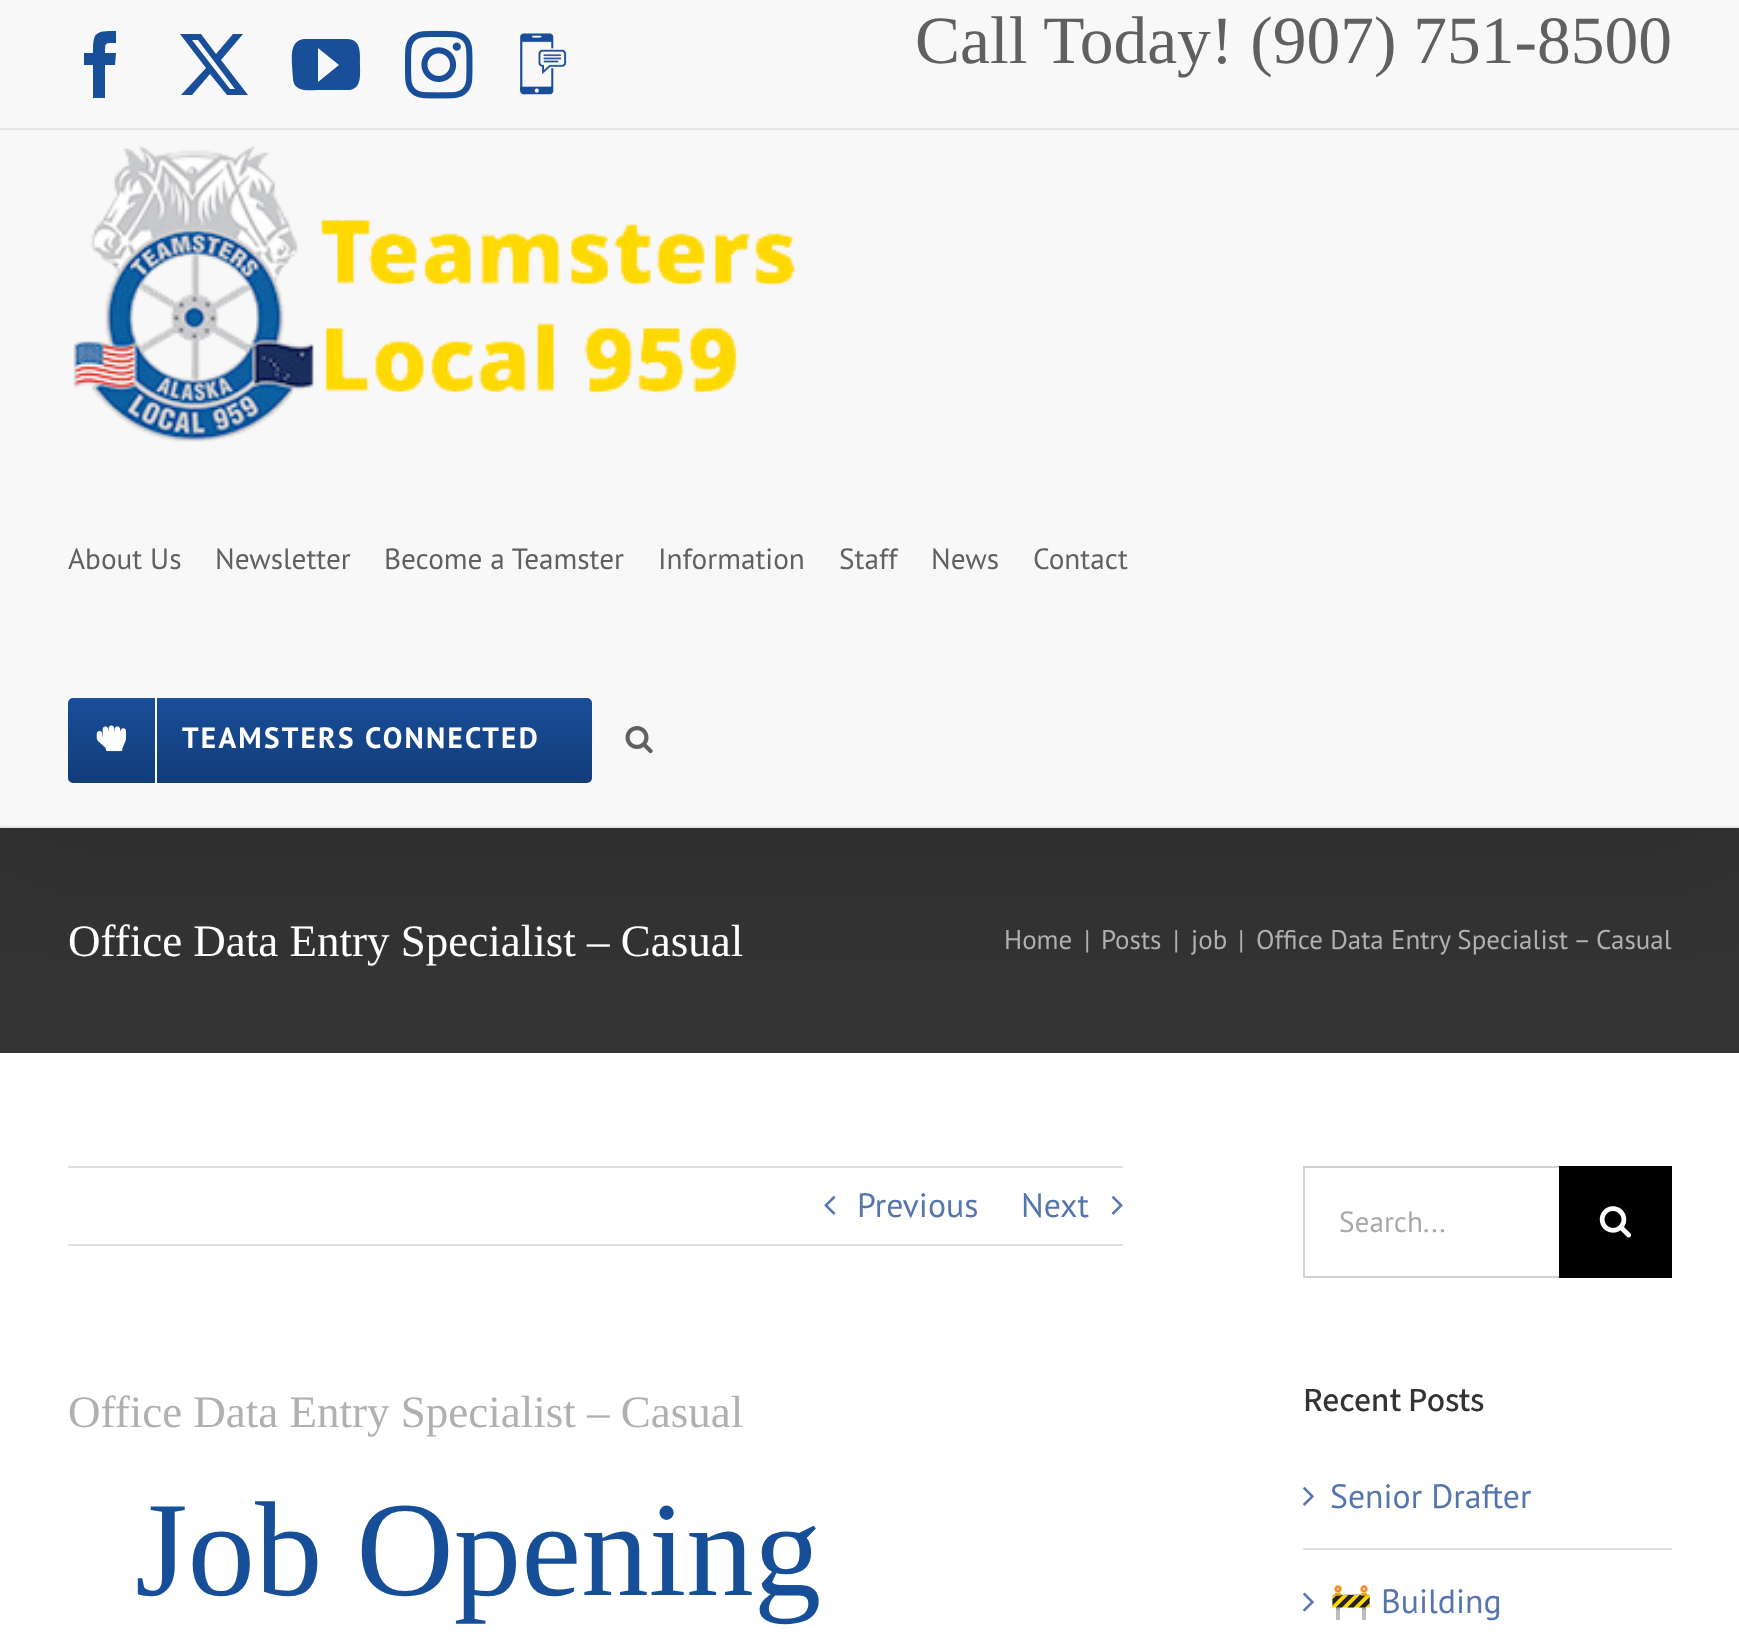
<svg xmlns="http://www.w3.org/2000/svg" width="1739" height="1648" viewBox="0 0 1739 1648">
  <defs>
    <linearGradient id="g1" gradientUnits="userSpaceOnUse" x1="330" y1="698" x2="330" y2="783"><stop offset="0" stop-color="rgb(25,78,152)"/><stop offset="1" stop-color="rgb(18,60,122)"/></linearGradient>
  </defs>
  <rect width="100%" height="100%" fill="rgb(255,255,255)"/>
  <rect x="0" y="828" width="1739" height="225" fill="rgb(51,51,51)"/>
  <rect x="5" y="27" width="1730" height="819" fill="rgba(0,0,0,0.14)" filter="blur(56px)"/>
  <rect x="0" y="0" width="1739" height="826" fill="rgb(248,248,248)"/>
  <rect x="0" y="128" width="1739" height="2" fill="rgb(229,229,229)"/>
  <path d="M105 98H93V65H84V53H93C93 32 95 31 116 31V43C105 43 105 42 105 53H116L115 65H105Z" fill="rgb(25,78,152)"/>
  <path d="M233 34H243L221 60L248 95H227L210 74L192 95H181L206 68L180 34H201L216 54ZM230 89H235L198 40H192Z" fill="rgb(25,78,152)"/>
  <path d="M347 39H304C290 41 292 55 292 65L293 79C294 93 310 90 319 90H349C362 89 360 74 360 65C360 55 362 39 347 39ZM318 82V48L339 65Z" fill="rgb(25,78,152)"/>
  <image x="405" y="30" width="68" height="69" href="pic1.png"/>
  <image x="520" y="33" width="47" height="62" href="pic2.png"/>
  <text x="915" y="63" font-family="Liberation Serif" font-size="67.5" fill="rgb(97,95,95)">Call Today! (907) 751-8500</text>
  <rect x="0" y="826" width="1739" height="2" fill="rgb(229,229,229)"/>
  <image x="73" y="146" width="722" height="296" href="pic3.png"/>
  <g font-family="PT Sans" font-size="29.25" fill="rgb(97,95,95)">
    <text x="68" y="569">About Us</text>
    <text x="215" y="569">Newsletter</text>
    <text x="384" y="569">Become a Teamster</text>
    <text x="658" y="569">Information</text>
    <text x="839" y="569">Staff</text>
    <text x="931" y="569">News</text>
    <text x="1033" y="569">Contact</text>
  </g>
  <rect x="68" y="698" width="524" height="85" rx="5" fill="url(#g1)"/>
  <rect x="155" y="698" width="2" height="85" fill="rgb(255,255,255)"/>
  <image x="96" y="725" width="30" height="27" href="pic4.png"/>
  <text x="182" y="748" font-family="PT Sans" font-size="29.25" font-weight="bold" letter-spacing="2.25" fill="rgb(255,255,255)">TEAMSTERS CONNECTED</text>
  <image x="625" y="726" width="28" height="28" href="pic5.png"/>
  <text x="68" y="956" font-family="Liberation Serif" font-size="45" fill="rgb(255,255,255)">Office Data Entry Specialist – Casual</text>
  <g font-family="PT Sans" font-size="27" fill="rgb(178,176,174)">
    <text x="1004" y="949">Home</text>
    <text x="1084" y="949">|</text>
    <text x="1101" y="949">Posts</text>
    <text x="1173" y="949">|</text>
    <text x="1191" y="949">job</text>
    <text x="1238" y="949">|</text>
    <text x="1256" y="949">Office Data Entry Specialist – Casual</text>
  </g>
  <rect x="68" y="1166" width="1055" height="2" fill="rgb(224,222,222)"/>
  <rect x="68" y="1244" width="1055" height="2" fill="rgb(224,222,222)"/>
  <image x="824" y="1196" width="12" height="19" href="pic6.png"/>
  <g font-family="PT Sans" font-size="33.75" fill="rgb(85,118,173)">
    <text x="857" y="1217">Previous</text>
    <text x="1021" y="1217">Next</text>
  </g>
  <image x="1111" y="1196" width="12" height="19" href="pic7.png"/>
  <text x="68" y="1427" font-family="Liberation Serif" font-size="45" fill="rgb(178,176,174)">Office Data Entry Specialist – Casual</text>
  <text x="135" y="1595" font-family="Liberation Serif" font-size="135" fill="rgb(22,79,152)">Job Opening</text>
  <rect x="1303" y="1166" width="256" height="2" fill="rgb(210,210,210)"/>
  <rect x="1303" y="1276" width="256" height="2" fill="rgb(210,210,210)"/>
  <rect x="1303" y="1166" width="2" height="112" fill="rgb(210,210,210)"/>
  <text x="1339" y="1232" font-family="PT Sans" font-size="29.25" fill="rgb(170,169,169)">Search...</text>
  <rect x="1559" y="1166" width="113" height="112" fill="rgb(0,0,0)"/>
  <image x="1599" y="1206" width="33" height="32" href="pic8.png"/>
  <text x="1303" y="1411" font-family="'Source Sans 3'" font-size="33.75" font-weight="200" fill="rgb(51,51,51)">Recent Posts</text>
  <rect x="1303" y="1548" width="369" height="2" fill="rgb(224,222,222)"/>
  <image x="1303" y="1487" width="11" height="19" href="pic9.png"/>
  <text x="1330" y="1508" font-family="PT Sans" font-size="33.75" fill="rgb(85,118,173)">Senior Drafter</text>
  <image x="1303" y="1592" width="11" height="20" href="pic10.png"/>
  <text x="1330" y="1613" font-family="Noto Color Emoji" font-size="33.75" fill="rgb(85,118,173)">🚧</text>
  <text x="1381" y="1613" font-family="PT Sans" font-size="33.75" fill="rgb(85,118,173)">Building</text>
</svg>
